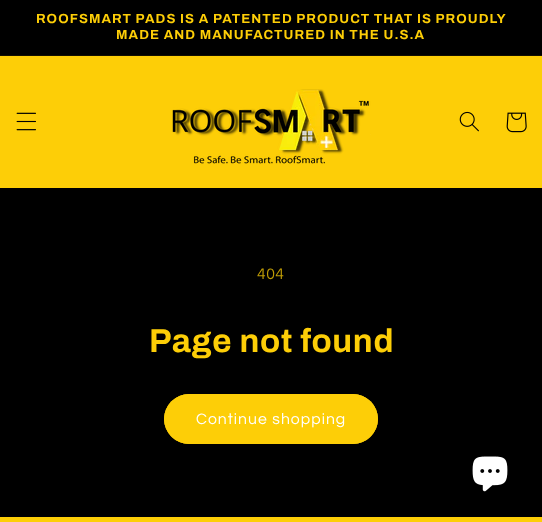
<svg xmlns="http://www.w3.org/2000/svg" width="542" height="522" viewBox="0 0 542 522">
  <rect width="100%" height="100%" fill="rgb(0,0,0)"/>
  <rect x="0" y="55" width="542" height="1" fill="rgb(20,16,1)"/>
  <g font-family="Archivo" font-size="13.2" font-weight="bold" letter-spacing="1.05" fill="rgb(253,206,7)">
    <text x="36" y="23">ROOFSMART PADS IS A PATENTED PRODUCT THAT IS PROUDLY</text>
    <text x="116" y="39">MADE AND MANUFACTURED IN THE U.S.A</text>
  </g>
  <rect x="0" y="56" width="542" height="132" fill="rgb(253,206,7)"/>
  <image x="16" y="112" width="20" height="19" href="pic1.png"/>
  <image x="172" y="89" width="199" height="75" href="pic2.png"/>
  <image x="459" y="111" width="20" height="21" href="pic3.png"/>
  <image x="506" y="112" width="21" height="21" href="pic4.png"/>
  <text x="257" y="279" font-family="Questrial" font-size="15.75" letter-spacing="0.5" fill="rgb(190,155,5)">404</text>
  <text x="149" y="352" font-family="Archivo" font-size="33" font-weight="bold" letter-spacing="0.7" fill="rgb(253,206,7)">Page not found</text>
  <rect x="164" y="394" width="214" height="50" rx="25" fill="rgb(253,206,7)"/>
  <rect x="164.5" y="394.5" width="213" height="49" rx="24.5" fill="none" stroke="rgb(253,206,7)"/>
  <text x="196" y="424" font-family="Questrial" font-size="15.75" letter-spacing="1.05" fill="rgb(255,255,255)">Continue shopping</text>
  <rect x="0" y="517" width="542" height="5" fill="rgb(253,206,7)"/>
  <image x="472" y="456" width="36" height="36" href="pic5.png"/>
</svg>
